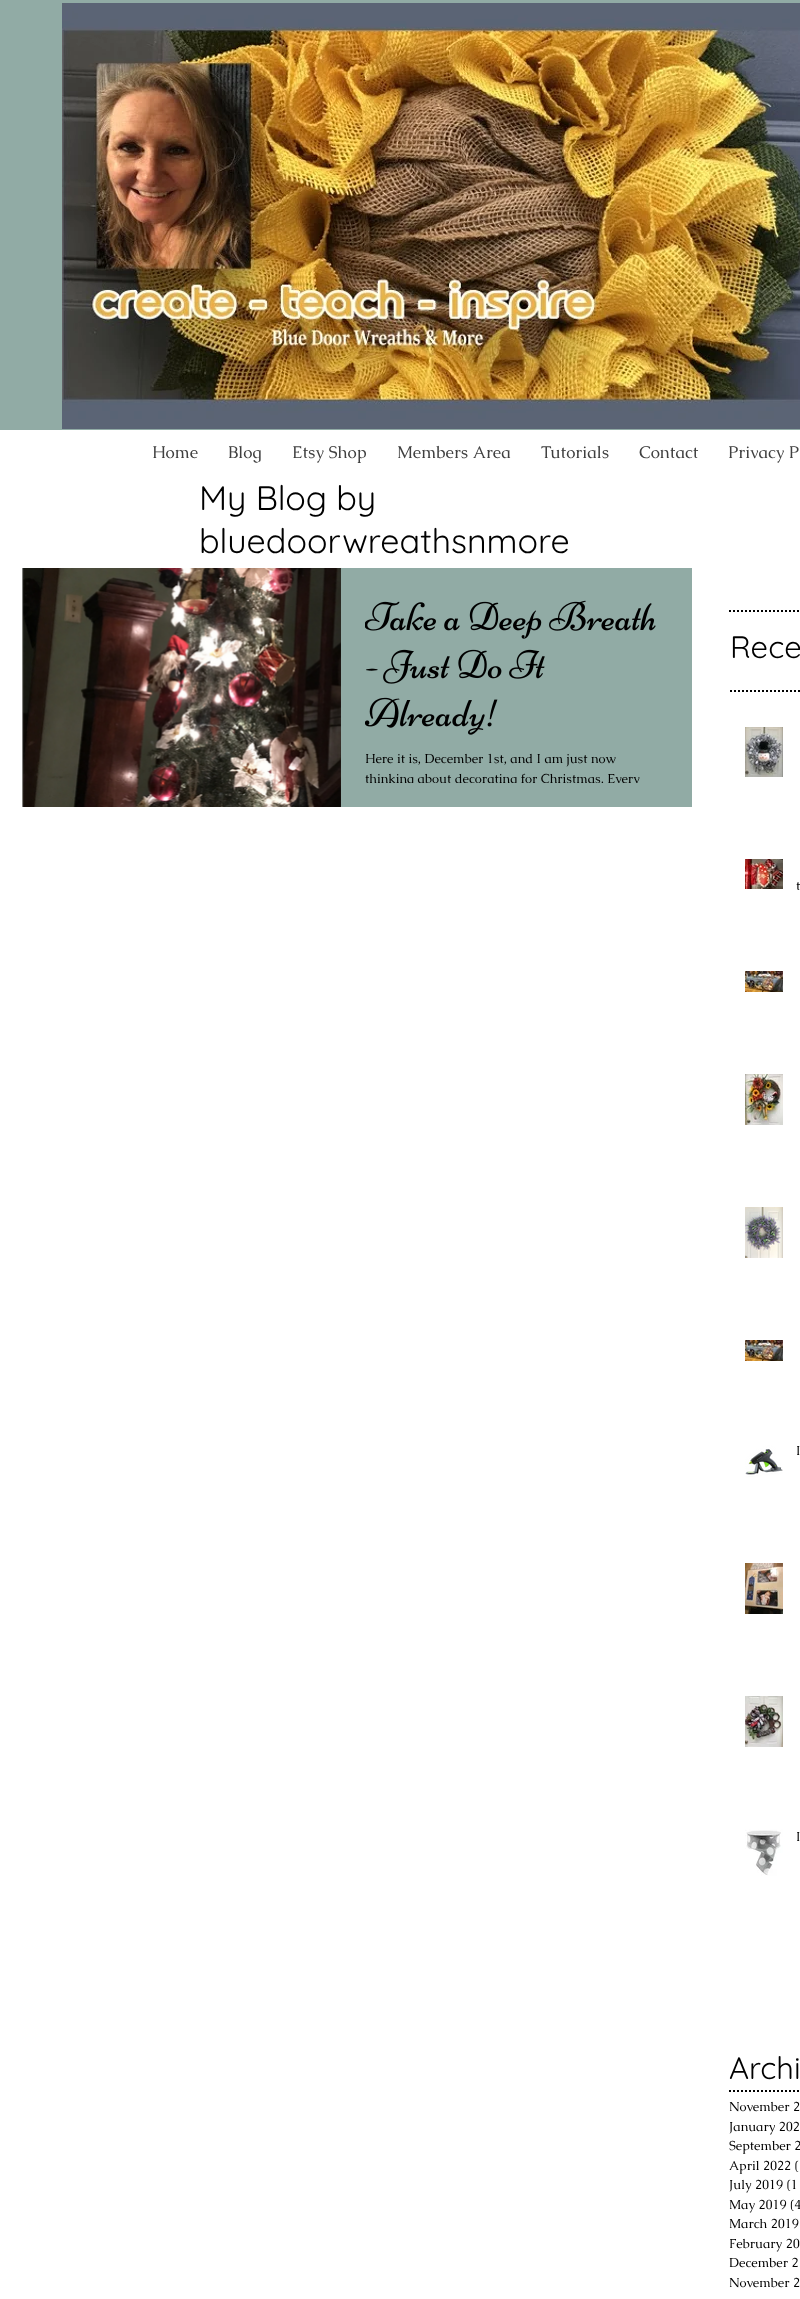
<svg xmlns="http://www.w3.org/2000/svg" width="800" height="2299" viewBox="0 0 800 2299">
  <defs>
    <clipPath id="clip1"><rect x="365" y="749" width="303" height="34"/></clipPath>
  </defs>
  <rect width="100%" height="100%" fill="rgb(145,171,165)"/>
  <image x="62" y="3" width="738" height="426" href="pic1.png"/>
  <rect x="0" y="430" width="800" height="1869" fill="rgb(255,255,255)"/>
  <g font-family="Caudex" font-size="17" fill="rgb(64,64,64)">
    <text x="152" y="458">Home</text>
    <text x="228" y="458">Blog</text>
    <text x="292" y="458">Etsy Shop</text>
    <text x="397" y="458">Members Area</text>
    <text x="541" y="458">Tutorials</text>
    <text x="639" y="458">Contact</text>
    <text x="728" y="458">Privacy P</text>
  </g>
  <g font-family="Quicksand" font-size="34" fill="rgb(0,0,0)">
    <text>
      <tspan x="199" y="510">My Blog by</tspan>
      <tspan x="199" y="553">bluedoorwreathsnmore</tspan>
    </text>
  </g>
  <path d="M729 611H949" fill="none" stroke="rgb(0,0,0)" stroke-width="2" stroke-dasharray="2 2"/>
  <text x="730" y="658" font-family="Quicksand" font-size="31" fill="rgb(0,0,0)">Rece</text>
  <path d="M730 691H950" fill="none" stroke="rgb(0,0,0)" stroke-width="2" stroke-dasharray="2 2"/>
  <image x="22" y="568" width="319" height="239" href="pic2.png"/>
  <image x="22" y="568" width="319" height="239" href="pic3.png"/>
  <rect x="341" y="568" width="351" height="239" fill="rgb(145,171,165)"/>
  <image x="365" y="600" width="291" height="39" href="pic4.png"/>
  <image x="366" y="649" width="179" height="35" href="pic5.png"/>
  <image x="365" y="697" width="133" height="38" href="pic6.png"/>
  <text x="365" y="763" font-family="Caudex" font-size="13" fill="rgb(0,0,0)">Here it is, December 1st, and I am just now</text>
  <g clip-path="url(#clip1)">
    <text x="365" y="783" font-family="Caudex" font-size="13" fill="rgb(0,0,0)">thinking about decorating for Christmas. Every</text>
  </g>
  <image x="745" y="727" width="38" height="50" href="pic7.png"/>
  <image x="745" y="859" width="38" height="30" href="pic8.png"/>
  <text x="796" y="890" font-family="Caudex" font-size="13" fill="rgb(0,0,0)">t</text>
  <image x="745" y="971" width="38" height="21" href="pic9.png"/>
  <image x="745" y="1074" width="38" height="51" href="pic10.png"/>
  <image x="745" y="1207" width="38" height="51" href="pic11.png"/>
  <image x="745" y="1340" width="38" height="21" href="pic9.png"/>
  <image x="745" y="1444" width="38" height="37" href="pic12.png"/>
  <text x="796" y="1455" font-family="Caudex" font-size="13" fill="rgb(0,0,0)">I</text>
  <image x="745" y="1563" width="38" height="51" href="pic13.png"/>
  <image x="745" y="1696" width="38" height="51" href="pic14.png"/>
  <image x="745" y="1829" width="38" height="47" href="pic15.png"/>
  <text x="796" y="1841" font-family="Caudex" font-size="13" fill="rgb(0,0,0)">I</text>
  <text x="729" y="2079" font-family="Quicksand" font-size="31" fill="rgb(0,0,0)">Archi</text>
  <path d="M729 2091H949" fill="none" stroke="rgb(0,0,0)" stroke-width="2" stroke-dasharray="2 2"/>
  <g font-family="Caudex" font-size="13" fill="rgb(0,0,0)">
    <text>
      <tspan x="729" y="2111">November 2</tspan>
      <tspan x="729" y="2131">January 202</tspan>
      <tspan x="729" y="2150">September 2</tspan>
      <tspan x="729" y="2170">April 2022 (</tspan>
      <tspan x="729" y="2189">July 2019 (1</tspan>
      <tspan x="729" y="2209">May 2019 (4</tspan>
      <tspan x="729" y="2228">March 2019</tspan>
      <tspan x="729" y="2248">February 20</tspan>
      <tspan x="729" y="2267">December 2</tspan>
      <tspan x="729" y="2287">November 2</tspan>
    </text>
  </g>
</svg>
